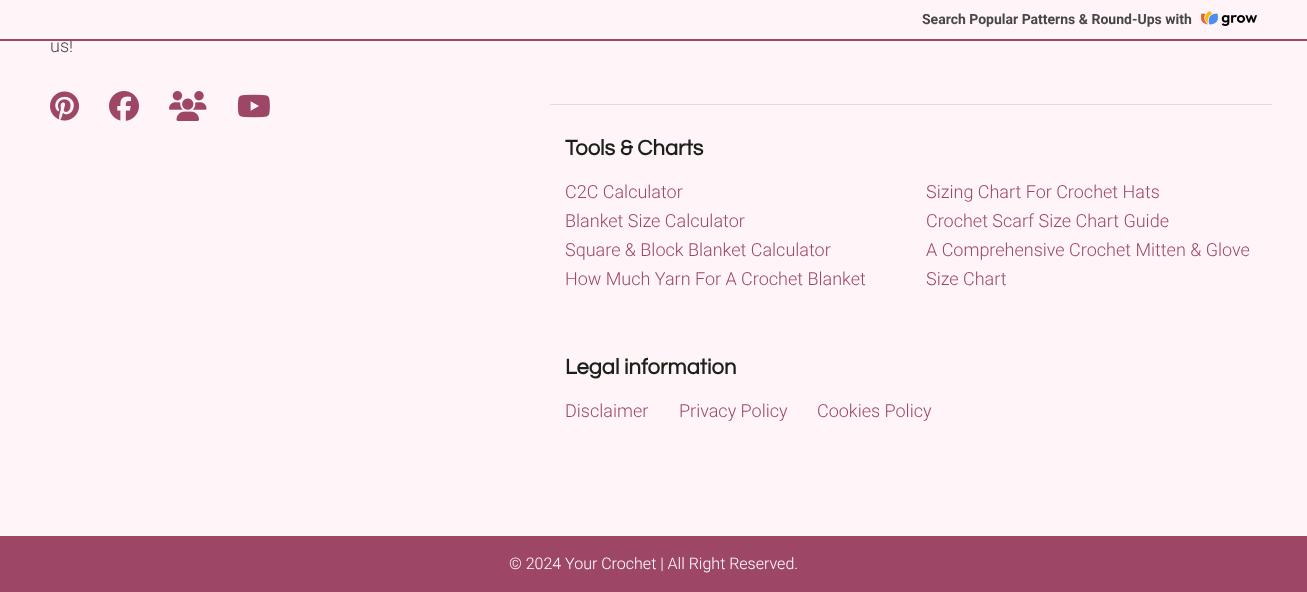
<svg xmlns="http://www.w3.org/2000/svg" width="1307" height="592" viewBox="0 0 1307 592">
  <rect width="100%" height="100%" fill="rgb(255,245,248)"/>
  <text x="50" y="52" font-family="Roboto" font-size="18" font-weight="300" fill="rgb(70,70,70)">us!</text>
  <rect x="0" y="39" width="1307" height="2" fill="rgb(158,70,102)"/>
  <text x="922" y="24" font-family="Roboto" font-size="14" font-weight="bold" fill="rgb(70,70,70)">Search Popular Patterns &amp; Round-Ups with</text>
  <image x="1201" y="11" width="56" height="15" href="pic1.png"/>
  <image x="50" y="91" width="29" height="30" href="pic2.png"/>
  <image x="109" y="91" width="30" height="30" href="pic3.png"/>
  <image x="169" y="91" width="38" height="30" href="pic4.png"/>
  <image x="237" y="94" width="33" height="24" href="pic5.png"/>
  <rect x="550" y="104" width="722" height="1" fill="rgb(234,215,218)"/>
  <text x="565" y="155" font-family="Questrial" font-size="22" font-weight="bold" fill="rgb(27,33,26)">Tools &amp; Charts</text>
  <g font-family="Roboto" font-size="18" font-weight="300" fill="rgb(158,70,102)">
    <text x="565" y="198">C2C Calculator</text>
    <text x="926" y="198">Sizing Chart For Crochet Hats</text>
    <text x="565" y="227">Blanket Size Calculator</text>
    <text x="926" y="227">Crochet Scarf Size Chart Guide</text>
    <text x="565" y="256">Square &amp; Block Blanket Calculator</text>
    <text>
      <tspan x="926" y="256">A Comprehensive Crochet Mitten &amp; Glove</tspan>
      <tspan x="926" y="285">Size Chart</tspan>
    </text>
    <text x="565" y="285">How Much Yarn For A Crochet Blanket</text>
  </g>
  <text x="565" y="374" font-family="Questrial" font-size="22" font-weight="bold" fill="rgb(27,33,26)">Legal information</text>
  <g font-family="Roboto" font-size="18" font-weight="300" fill="rgb(158,70,102)">
    <text x="565" y="417">Disclaimer</text>
    <text x="679" y="417">Privacy Policy</text>
    <text x="817" y="417">Cookies Policy</text>
  </g>
  <rect x="0" y="536" width="1307" height="56" fill="rgb(158,70,102)"/>
  <text x="509" y="569" font-family="Roboto" font-size="16" font-weight="300" fill="rgb(255,255,255)">© 2024 Your Crochet | All Right Reserved.</text>
</svg>
